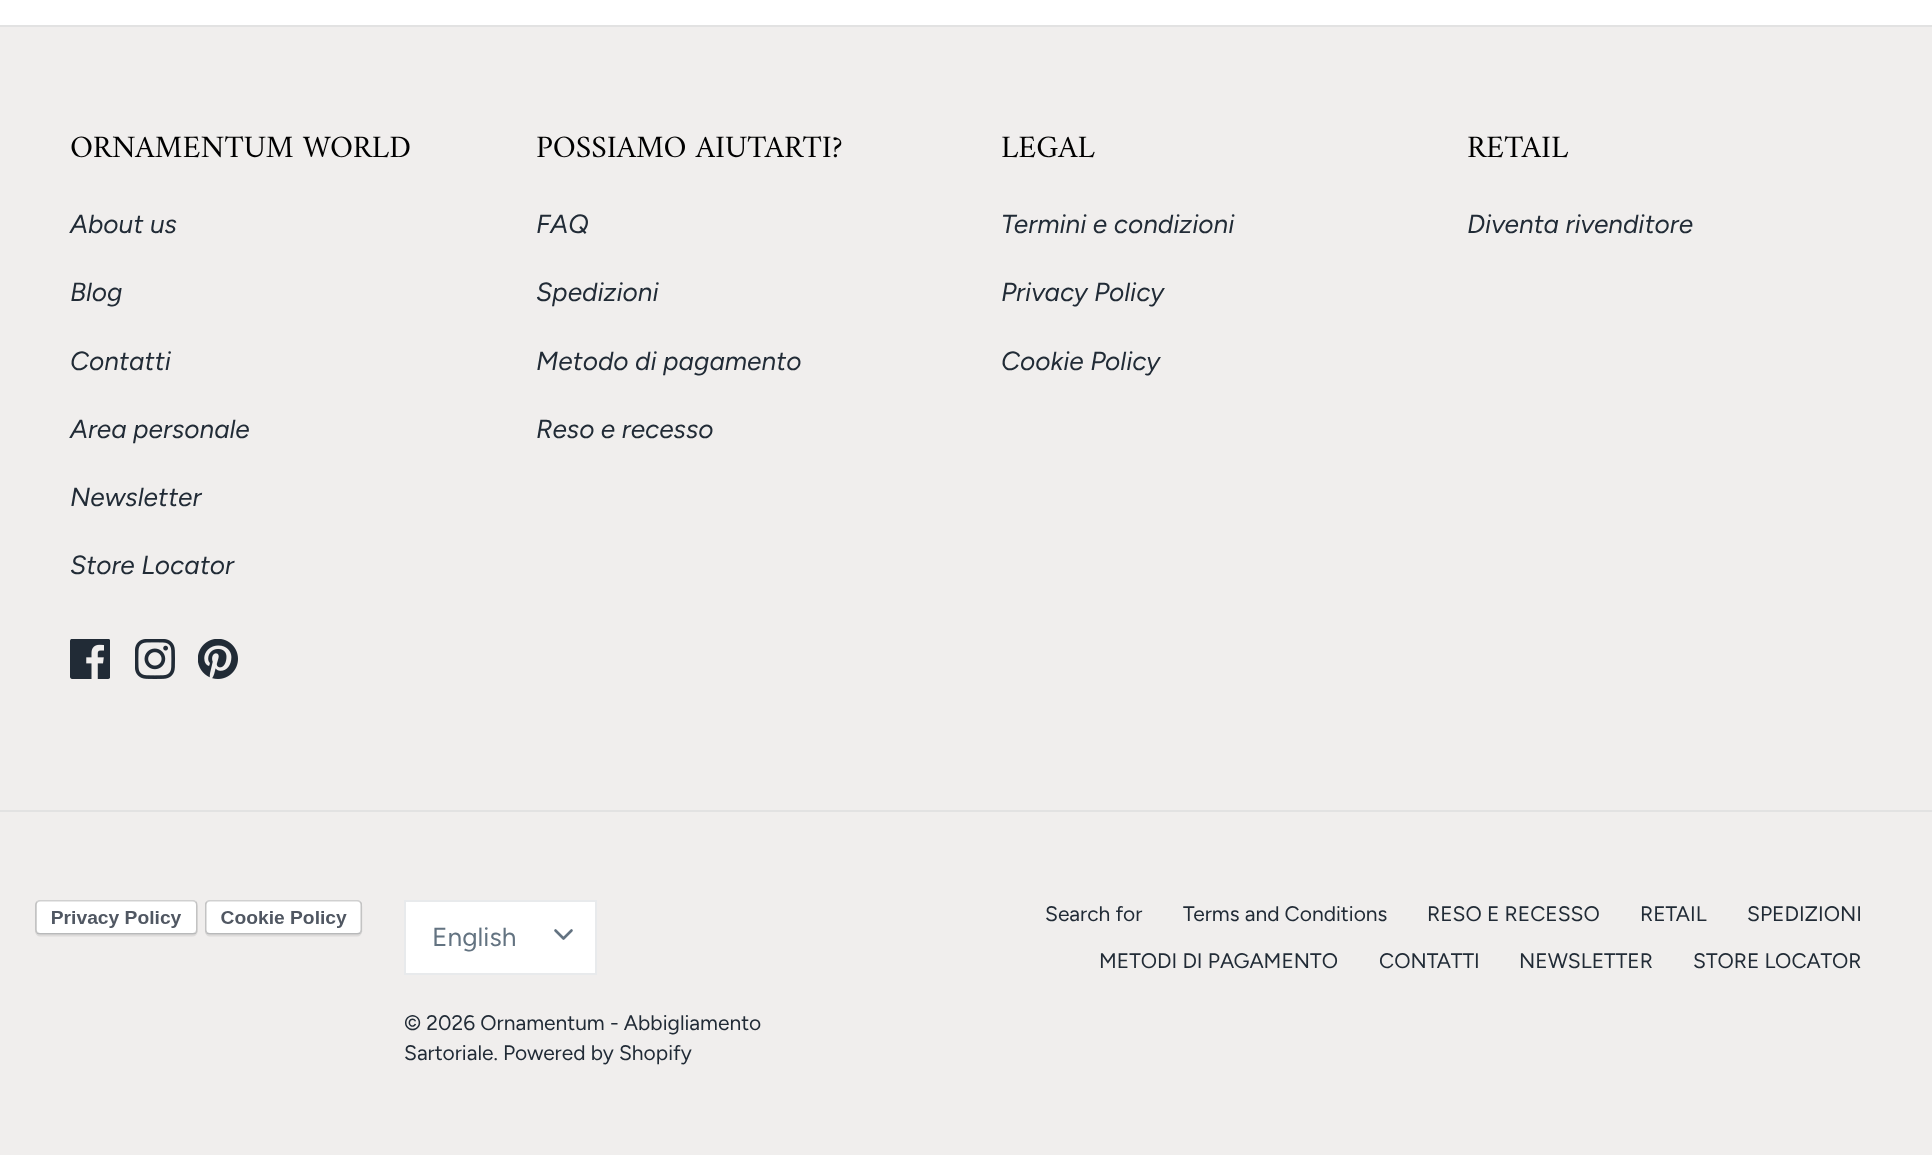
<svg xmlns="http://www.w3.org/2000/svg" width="1932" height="1155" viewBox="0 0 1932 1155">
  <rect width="100%" height="100%" fill="rgb(240,238,237)"/>
  <rect x="0" y="0" width="1932" height="25" fill="rgb(255,255,255)"/>
  <rect x="0" y="25" width="1932" height="2" fill="rgb(226,226,226)"/>
  <text x="70" y="157" font-family="Amiri" font-size="31.5" fill="rgb(0,0,0)">ORNAMENTUM WORLD</text>
  <g font-family="Figtree" font-size="26.25" font-style="italic" fill="rgb(33,43,54)">
    <text x="70" y="233">About us</text>
    <text x="70" y="301">Blog</text>
    <text x="70" y="370">Contatti</text>
    <text x="70" y="438">Area personale</text>
    <text x="70" y="506">Newsletter</text>
    <text x="70" y="574">Store Locator</text>
  </g>
  <image x="70" y="639" width="40" height="40" href="pic1.png"/>
  <image x="135" y="639" width="40" height="40" href="pic2.png"/>
  <image x="198" y="639" width="40" height="40" href="pic3.png"/>
  <text x="536" y="157" font-family="Amiri" font-size="31.5" fill="rgb(0,0,0)">POSSIAMO AIUTARTI?</text>
  <g font-family="Figtree" font-size="26.25" font-style="italic" fill="rgb(33,43,54)">
    <text x="536" y="233">FAQ</text>
    <text x="536" y="301">Spedizioni</text>
    <text x="536" y="370">Metodo di pagamento</text>
    <text x="536" y="438">Reso e recesso</text>
  </g>
  <text x="1001" y="157" font-family="Amiri" font-size="31.5" fill="rgb(0,0,0)">LEGAL</text>
  <g font-family="Figtree" font-size="26.25" font-style="italic" fill="rgb(33,43,54)">
    <text x="1001" y="233">Termini e condizioni</text>
    <text x="1001" y="301">Privacy Policy</text>
    <text x="1001" y="370">Cookie Policy</text>
  </g>
  <text x="1467" y="157" font-family="Amiri" font-size="31.5" fill="rgb(0,0,0)">RETAIL</text>
  <text x="1467" y="233" font-family="Figtree" font-size="26.25" font-style="italic" fill="rgb(33,43,54)">Diventa rivenditore</text>
  <rect x="0" y="810" width="1932" height="2" fill="rgb(226,226,226)"/>
  <image x="35" y="900" width="163" height="37" href="pic4.png"/>
  <image x="205" y="900" width="158" height="37" href="pic5.png"/>
  <rect x="405" y="901" width="191" height="73" fill="rgb(255,255,255)" stroke="rgb(232,234,236)" stroke-width="2"/>
  <text x="432" y="946" font-family="Figtree" font-size="26.25" fill="rgb(99,115,129)">English</text>
  <path d="M555.5 930.5L563.5 938.5L571.5 930.5" fill="none" stroke="rgb(99,115,129)" stroke-width="2.6" stroke-linecap="round" stroke-linejoin="round"/>
  <g font-family="Figtree" font-size="21" fill="rgb(33,43,54)">
    <text>
      <tspan x="404" y="1030">© 2026 Ornamentum - Abbigliamento</tspan>
      <tspan x="404" y="1060">Sartoriale. Powered by Shopify</tspan>
    </text>
    <text x="1045" y="921">Search for</text>
    <text x="1183" y="921">Terms and Conditions</text>
    <text x="1427" y="921">RESO E RECESSO</text>
    <text x="1640" y="921">RETAIL</text>
    <text x="1747" y="921">SPEDIZIONI</text>
    <text x="1099" y="968">METODI DI PAGAMENTO</text>
    <text x="1379" y="968">CONTATTI</text>
    <text x="1519" y="968">NEWSLETTER</text>
    <text x="1693" y="968">STORE LOCATOR</text>
  </g>
</svg>
